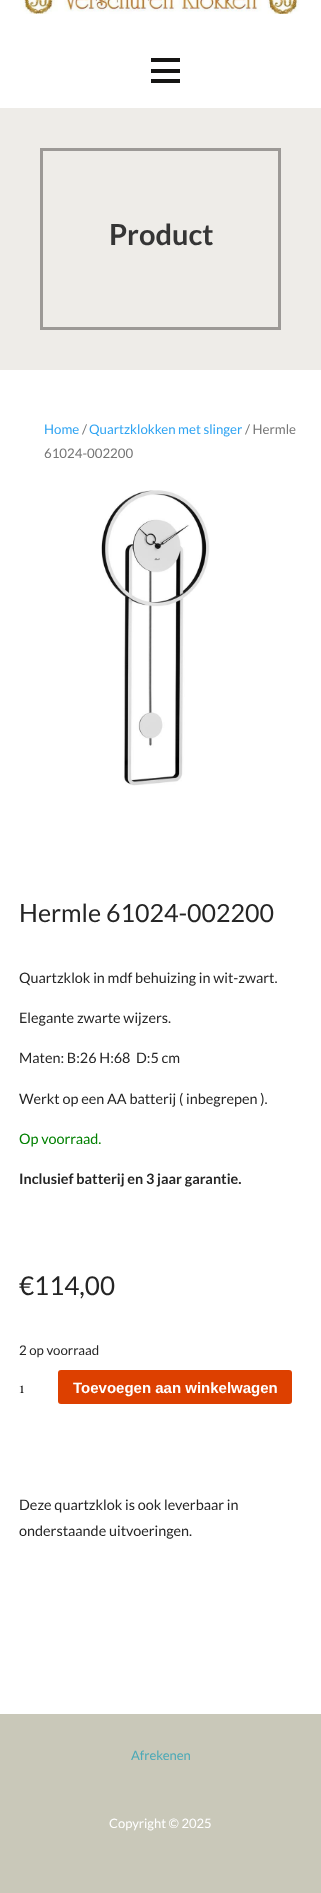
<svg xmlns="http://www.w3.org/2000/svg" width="321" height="1893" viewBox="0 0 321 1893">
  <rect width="100%" height="100%" fill="rgb(255,255,255)"/>
  <image x="20" y="0" width="280" height="14" href="pic1.png"/>
  <rect x="151" y="58" width="29" height="4" fill="rgb(22,21,20)"/>
  <rect x="151" y="69" width="29" height="4" fill="rgb(22,21,20)"/>
  <rect x="151" y="79" width="29" height="4" fill="rgb(22,21,20)"/>
  <rect x="0" y="108" width="321" height="262" fill="rgb(238,236,232)"/>
  <rect x="41.5" y="149.5" width="238" height="179" fill="none" stroke="rgb(156,153,150)" stroke-width="3"/>
  <text x="109" y="245" font-family="Lato" font-size="29" font-weight="bold" fill="rgb(53,53,53)">Product</text>
  <text x="44" y="434" font-family="Lato" font-size="13.25" fill="rgb(46,163,242)">Home</text>
  <text x="82" y="434" font-family="Lato" font-size="13.25" fill="rgb(118,118,118)">/</text>
  <text x="89" y="434" font-family="Lato" font-size="13.25" fill="rgb(46,163,242)">Quartzklokken met slinger</text>
  <g font-family="Lato" font-size="13.25" fill="rgb(118,118,118)">
    <text x="245" y="434">/ Hermle</text>
    <text x="44" y="458">61024-002200</text>
  </g>
  <image x="101" y="490" width="109" height="296" href="pic2.png"/>
  <text x="19" y="922" font-family="Lato" font-size="25" fill="rgb(37,37,37)">Hermle 61024-002200</text>
  <g font-family="Lato" font-size="14.4" fill="rgb(37,37,37)">
    <text x="19" y="983">Quartzklok in mdf behuizing in wit-zwart.</text>
    <text x="19" y="1023">Elegante zwarte wijzers.</text>
    <text x="19" y="1063" xml:space="preserve">Maten: B:26 H:68  D:5 cm</text>
    <text x="19" y="1104">Werkt op een AA batterij ( inbegrepen ).</text>
  </g>
  <text x="19" y="1144" font-family="Lato" font-size="14.4" fill="rgb(0,128,0)">Op voorraad.</text>
  <text x="19" y="1184" font-family="Lato" font-size="14.4" font-weight="bold" fill="rgb(37,37,37)">Inclusief batterij en 3 jaar garantie.</text>
  <text x="19" y="1295" font-family="Lato" font-size="26" fill="rgb(37,37,37)">€114,00</text>
  <text x="19" y="1355" font-family="Lato" font-size="13.25" fill="rgb(37,37,37)">2 op voorraad</text>
  <text x="19" y="1393" font-family="Playfair Display" font-size="14.4" fill="rgb(37,37,37)">1</text>
  <rect x="58" y="1370" width="234" height="34" rx="3" fill="rgb(221,64,0)"/>
  <text x="73" y="1393" font-family="Liberation Sans" font-size="15" font-weight="bold" fill="rgb(255,255,255)">Toevoegen aan winkelwagen</text>
  <g font-family="Lato" font-size="14.4" fill="rgb(37,37,37)">
    <text>
      <tspan x="19" y="1510">Deze quartzklok is ook leverbaar in</tspan>
      <tspan x="19" y="1536">onderstaande uitvoeringen.</tspan>
    </text>
  </g>
  <rect x="0" y="1714" width="321" height="179" fill="rgb(201,200,185)"/>
  <text x="131" y="1760" font-family="Lato" font-size="13" fill="rgb(75,169,183)">Afrekenen</text>
  <text x="109" y="1828" font-family="Lato" font-size="13" fill="rgb(255,255,255)">Copyright © 2025</text>
</svg>
